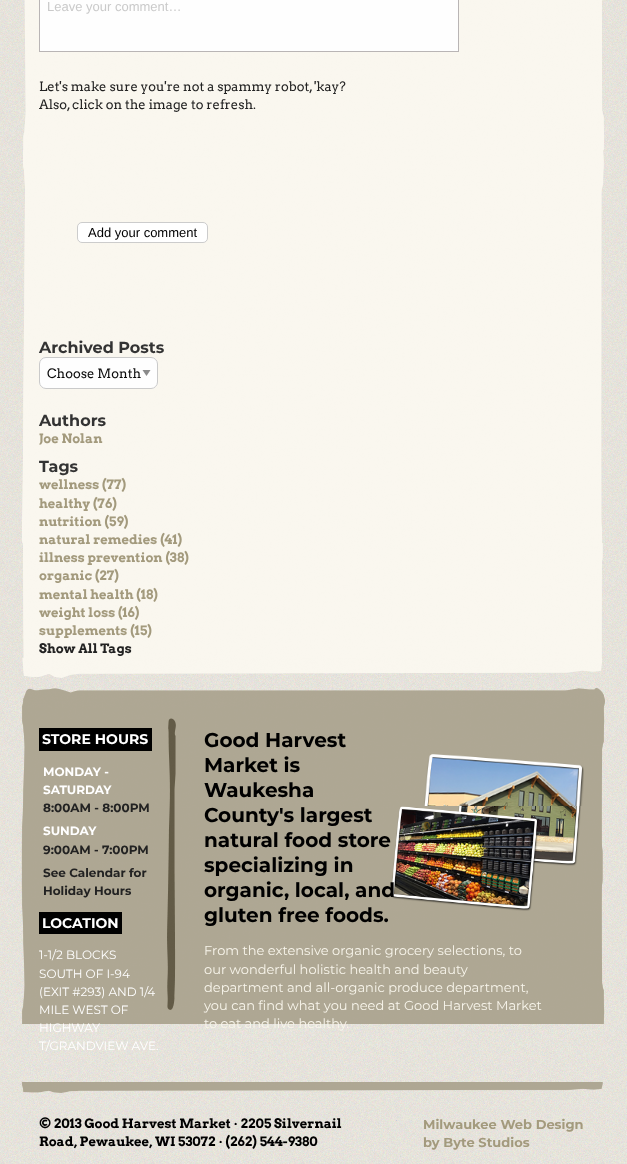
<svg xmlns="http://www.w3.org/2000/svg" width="627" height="1164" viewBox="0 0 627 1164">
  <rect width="100%" height="100%" fill="rgb(255,255,255)"/>
  <image x="0" y="0" width="627" height="1164" href="pic1.png"/>
  <image x="22" y="0" width="583" height="658" href="pic2.png"/>
  <rect x="39.5" y="-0.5" width="419" height="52" fill="rgb(254,254,254)" stroke="rgb(185,181,181)"/>
  <text x="47" y="11" font-family="Liberation Sans" font-size="13" fill="rgb(202,202,202)">Leave your comment…</text>
  <g font-family="Arvo" font-size="13" fill="rgb(34,34,34)">
    <text>
      <tspan x="39" y="91">Let's make sure you're not a spammy robot, 'kay?</tspan>
      <tspan x="39" y="109">Also, click on the image to refresh.</tspan>
    </text>
  </g>
  <rect x="77.5" y="222.5" width="130" height="20" rx="4.5" fill="rgb(255,255,255)" stroke="rgb(204,204,204)"/>
  <text x="88" y="237" font-family="Liberation Sans" font-size="13" fill="rgb(0,0,0)">Add your comment</text>
  <text x="39" y="353" font-family="Montserrat" font-size="16" font-weight="bold" fill="rgb(51,51,51)">Archived Posts</text>
  <rect x="39" y="357" width="119" height="32" rx="7" fill="rgb(254,254,254)"/>
  <path d="M142.5 370H150.5L146.5 376Z" fill="rgb(138,138,138)"/>
  <rect x="39.5" y="357.5" width="118" height="31" rx="6.5" fill="none" stroke="rgb(202,202,202)"/>
  <text x="47" y="378" font-family="Arvo" font-size="13" fill="rgb(10,10,10)">Choose Month</text>
  <text x="39" y="426" font-family="Montserrat" font-size="16" font-weight="bold" fill="rgb(51,51,51)">Authors</text>
  <text x="39" y="443" font-family="Arvo" font-size="13" font-weight="bold" fill="rgb(163,154,125)">Joe Nolan</text>
  <text x="39" y="472" font-family="Montserrat" font-size="16" font-weight="bold" fill="rgb(51,51,51)">Tags</text>
  <g font-family="Arvo" font-size="13" font-weight="bold" fill="rgb(163,154,125)">
    <text>
      <tspan x="39" y="489">wellness (77)</tspan>
      <tspan x="39" y="508">healthy (76)</tspan>
      <tspan x="39" y="526">nutrition (59)</tspan>
      <tspan x="39" y="544">natural remedies (41)</tspan>
      <tspan x="39" y="562">illness prevention (38)</tspan>
      <tspan x="39" y="580">organic (27)</tspan>
      <tspan x="39" y="599">mental health (18)</tspan>
      <tspan x="39" y="617">weight loss (16)</tspan>
      <tspan x="39" y="635">supplements (15)</tspan>
    </text>
  </g>
  <text x="39" y="653" font-family="Arvo" font-size="13" font-weight="bold" fill="rgb(34,34,34)">Show All Tags</text>
  <image x="22" y="658" width="580" height="20" href="pic3.png"/>
  <image x="22" y="688" width="583" height="20" href="pic4.png"/>
  <image x="21" y="708" width="584" height="316" href="pic5.png"/>
  <image x="167" y="718" width="9" height="292" href="pic6.png"/>
  <rect x="39" y="728" width="113" height="23" fill="rgb(0,0,0)"/>
  <text x="42" y="744" font-family="Montserrat" font-size="14" font-weight="bold" fill="rgb(255,255,255)">STORE HOURS</text>
  <g font-family="Montserrat" font-size="12" font-weight="bold" fill="rgb(255,255,255)">
    <text>
      <tspan x="43" y="776">MONDAY -</tspan>
      <tspan x="43" y="794">SATURDAY</tspan>
    </text>
  </g>
  <text x="43" y="812" font-family="Montserrat" font-size="12" font-weight="bold" fill="rgb(34,34,34)">8:00AM - 8:00PM</text>
  <text x="43" y="835" font-family="Montserrat" font-size="12" font-weight="bold" fill="rgb(255,255,255)">SUNDAY</text>
  <g font-family="Montserrat" font-size="12" font-weight="bold" fill="rgb(34,34,34)">
    <text>
      <tspan x="43" y="854">9:00AM - 7:00PM</tspan>
      <tspan x="43" y="877">See Calendar for</tspan>
      <tspan x="43" y="895">Holiday Hours</tspan>
    </text>
  </g>
  <rect x="39" y="912" width="83" height="22" fill="rgb(0,0,0)"/>
  <text x="42" y="928" font-family="Montserrat" font-size="14" font-weight="bold" fill="rgb(255,255,255)">LOCATION</text>
  <g font-family="Montserrat" font-size="12" fill="rgb(255,255,255)">
    <text>
      <tspan x="39" y="959">1-1/2 BLOCKS</tspan>
      <tspan x="39" y="978">SOUTH OF I-94</tspan>
      <tspan x="39" y="996">(EXIT #293) AND 1/4</tspan>
      <tspan x="39" y="1014">MILE WEST OF</tspan>
      <tspan x="39" y="1032">HIGHWAY</tspan>
      <tspan x="39" y="1050">T/GRANDVIEW AVE.</tspan>
    </text>
  </g>
  <g font-family="Montserrat" font-size="20" font-weight="bold" fill="rgb(0,0,0)">
    <text>
      <tspan x="204" y="747">Good Harvest</tspan>
      <tspan x="204" y="772">Market is</tspan>
      <tspan x="204" y="797">Waukesha</tspan>
      <tspan x="204" y="822">County's largest</tspan>
      <tspan x="204" y="847">natural food store</tspan>
      <tspan x="204" y="872">specializing in</tspan>
    </text>
  </g>
  <image x="391" y="806" width="190" height="105" href="pic8.png"/>
  <g font-family="Montserrat" font-size="20" font-weight="bold" fill="rgb(0,0,0)">
    <text>
      <tspan x="204" y="897">organic, local, and</tspan>
      <tspan x="204" y="922">gluten free foods.</tspan>
    </text>
  </g>
  <image x="424" y="754" width="160" height="52" href="pic7.png"/>
  <g font-family="Montserrat" font-size="13" fill="rgb(248,245,235)">
    <text>
      <tspan x="204" y="955">From the extensive organic grocery selections, to</tspan>
      <tspan x="204" y="974">our wonderful holistic health and beauty</tspan>
      <tspan x="204" y="992">department and all-organic produce department,</tspan>
      <tspan x="204" y="1010">you can find what you need at Good Harvest Market</tspan>
      <tspan x="204" y="1028">to eat and live healthy.</tspan>
    </text>
  </g>
  <image x="21" y="1082" width="582" height="11" href="pic9.png"/>
  <g font-family="Arvo" font-size="13" font-weight="bold" fill="rgb(0,0,0)">
    <text>
      <tspan x="39" y="1128">© 2013 Good Harvest Market · 2205 Silvernail</tspan>
      <tspan x="39" y="1146">Road, Pewaukee, WI 53072 · (262) 544-9380</tspan>
    </text>
  </g>
  <g font-family="Montserrat" font-size="13" font-weight="bold" fill="rgb(163,154,125)">
    <text>
      <tspan x="423" y="1129">Milwaukee Web Design</tspan>
      <tspan x="423" y="1147">by Byte Studios</tspan>
    </text>
  </g>
  <rect x="396" y="1120" width="1" height="1" fill="rgb(201,202,220)"/>
</svg>
